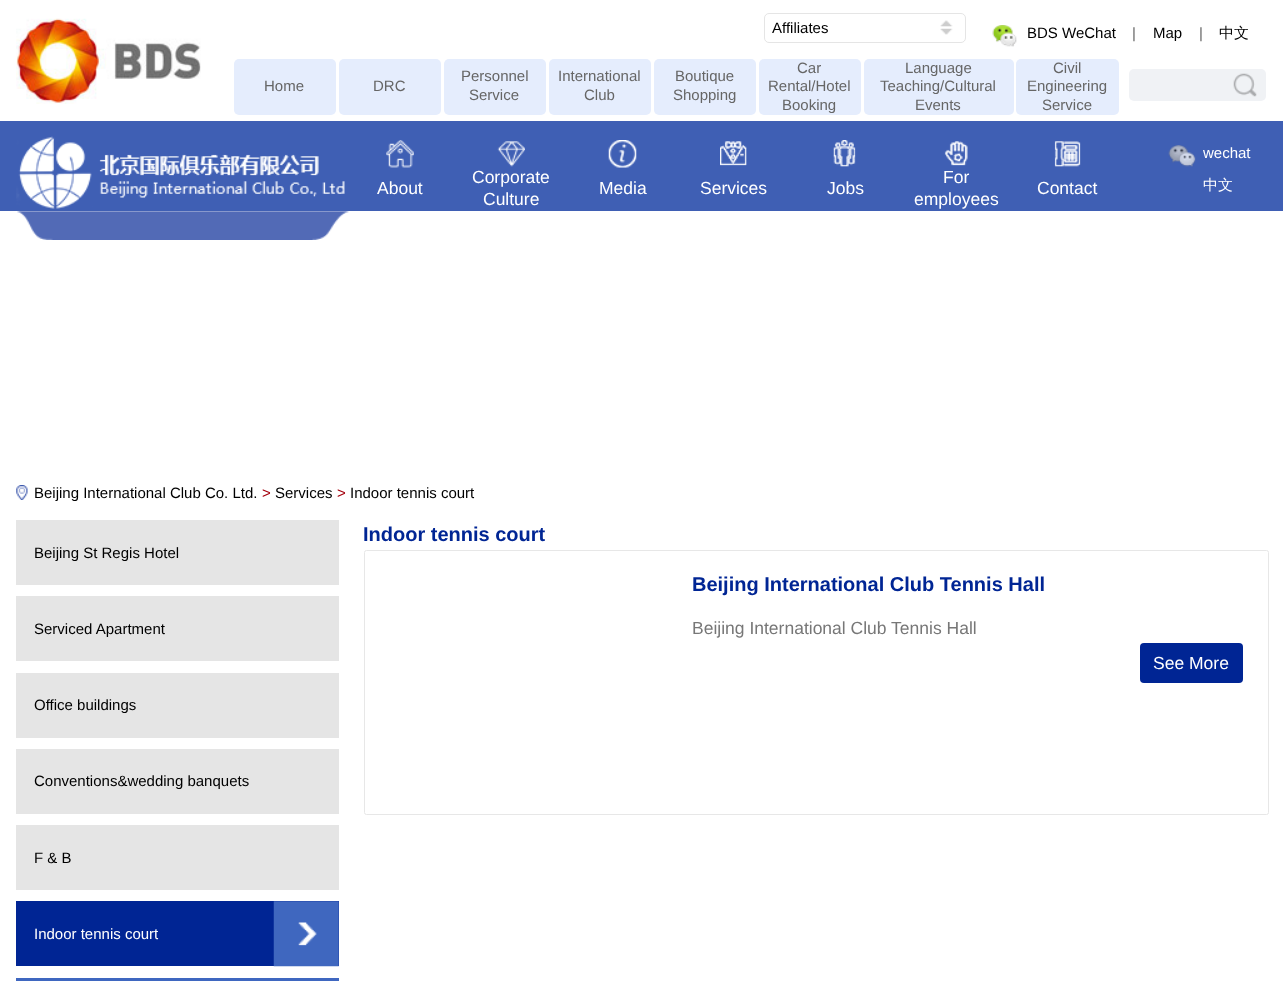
<svg xmlns="http://www.w3.org/2000/svg" width="1283" height="981" viewBox="0 0 1283 981">
  <rect width="100%" height="100%" fill="rgb(255,255,255)"/>
  <image x="16" y="18" width="185" height="86" href="pic1.png"/>
  <image x="940" y="20" width="13" height="15" href="pic2.png"/>
  <rect x="764.5" y="13.5" width="201" height="29" rx="4.5" fill="none" stroke="rgb(229,229,229)"/>
  <text x="772" y="33" font-family="Liberation Sans" font-size="15" fill="rgb(0,0,0)">Affiliates</text>
  <image x="992" y="25" width="25" height="22" href="pic3.png"/>
  <text x="1027" y="38" font-family="Liberation Sans" font-size="15" fill="rgb(0,0,0)">BDS WeChat</text>
  <text x="1132" y="38" font-family="Liberation Sans" font-size="15" fill="rgb(102,102,102)">|</text>
  <text x="1153" y="38" font-family="Liberation Sans" font-size="15" fill="rgb(0,0,0)">Map</text>
  <text x="1199" y="38" font-family="Liberation Sans" font-size="15" fill="rgb(102,102,102)">|</text>
  <text x="1219" y="38" font-family="WenQuanYi Zen Hei" font-size="15" font-weight="500" fill="rgb(0,0,0)">中文</text>
  <rect x="234" y="59" width="102" height="56" rx="5" fill="rgb(229,237,253)"/>
  <text x="264" y="91" font-family="Liberation Sans" font-size="15" fill="rgb(102,102,102)">Home</text>
  <rect x="339" y="59" width="102" height="56" rx="5" fill="rgb(229,237,253)"/>
  <text x="373" y="91" font-family="Liberation Sans" font-size="15" fill="rgb(102,102,102)">DRC</text>
  <rect x="444" y="59" width="102" height="56" rx="5" fill="rgb(229,237,253)"/>
  <g font-family="Liberation Sans" font-size="15" fill="rgb(102,102,102)">
    <text x="461" y="81">Personnel</text>
    <text x="469" y="100">Service</text>
  </g>
  <rect x="549" y="59" width="102" height="56" rx="5" fill="rgb(229,237,253)"/>
  <g font-family="Liberation Sans" font-size="15" fill="rgb(102,102,102)">
    <text x="558" y="81">International</text>
    <text x="584" y="100">Club</text>
  </g>
  <rect x="654" y="59" width="102" height="56" rx="5" fill="rgb(229,237,253)"/>
  <g font-family="Liberation Sans" font-size="15" fill="rgb(102,102,102)">
    <text x="675" y="81">Boutique</text>
    <text x="673" y="100">Shopping</text>
  </g>
  <rect x="759" y="59" width="102" height="56" rx="5" fill="rgb(229,237,253)"/>
  <g font-family="Liberation Sans" font-size="15" fill="rgb(102,102,102)">
    <text x="797" y="73">Car</text>
    <text x="768" y="91">Rental/Hotel</text>
    <text x="782" y="110">Booking</text>
  </g>
  <rect x="864" y="59" width="150" height="56" rx="5" fill="rgb(229,237,253)"/>
  <g font-family="Liberation Sans" font-size="15" fill="rgb(102,102,102)">
    <text x="905" y="73">Language</text>
    <text x="880" y="91">Teaching/Cultural</text>
    <text x="915" y="110">Events</text>
  </g>
  <rect x="1016" y="59" width="103" height="56" rx="5" fill="rgb(229,237,253)"/>
  <g font-family="Liberation Sans" font-size="15" fill="rgb(102,102,102)">
    <text x="1053" y="73">Civil</text>
    <text x="1027" y="91">Engineering</text>
    <text x="1042" y="110">Service</text>
  </g>
  <rect x="1129" y="69" width="137" height="32" rx="5" fill="rgb(240,242,245)"/>
  <image x="1233" y="73" width="24" height="24" href="pic4.png"/>
  <rect x="0" y="121" width="1283" height="90" fill="rgb(63,95,180)"/>
  <image x="16" y="136" width="329" height="73" href="pic5.png"/>
  <image x="386" y="140" width="28" height="28" href="pic6.png"/>
  <text x="377" y="194" font-family="Liberation Sans" font-size="17.5" fill="rgb(255,255,255)">About</text>
  <image x="497" y="141" width="28" height="26" href="pic7.png"/>
  <g font-family="Liberation Sans" font-size="17.5" fill="rgb(255,255,255)">
    <text x="472" y="183">Corporate</text>
    <text x="483" y="205">Culture</text>
  </g>
  <image x="608" y="140" width="29" height="28" href="pic8.png"/>
  <text x="599" y="194" font-family="Liberation Sans" font-size="17.5" fill="rgb(255,255,255)">Media</text>
  <image x="720" y="141" width="27" height="25" href="pic9.png"/>
  <text x="700" y="194" font-family="Liberation Sans" font-size="17.5" fill="rgb(255,255,255)">Services</text>
  <image x="833" y="140" width="23" height="27" href="pic10.png"/>
  <text x="827" y="194" font-family="Liberation Sans" font-size="17.5" fill="rgb(255,255,255)">Jobs</text>
  <image x="944" y="141" width="24" height="25" href="pic11.png"/>
  <g font-family="Liberation Sans" font-size="17.5" fill="rgb(255,255,255)">
    <text x="943" y="183">For</text>
    <text x="914" y="205">employees</text>
  </g>
  <image x="1054" y="141" width="27" height="26" href="pic12.png"/>
  <text x="1037" y="194" font-family="Liberation Sans" font-size="17.5" fill="rgb(255,255,255)">Contact</text>
  <image x="1168" y="145" width="28" height="22" href="pic13.png"/>
  <text x="1203" y="158" font-family="Liberation Sans" font-size="15" fill="rgb(255,255,255)">wechat</text>
  <text x="1203" y="190" font-family="WenQuanYi Zen Hei" font-size="15" font-weight="500" fill="rgb(255,255,255)">中文</text>
  <image x="17" y="211" width="332" height="29" href="pic14.png"/>
  <image x="16" y="485" width="12" height="15" href="pic15.png"/>
  <text x="34" y="498" font-family="Liberation Sans" font-size="15" fill="rgb(0,0,0)">Beijing International Club Co. Ltd.</text>
  <text x="262" y="498" font-family="Liberation Sans" font-size="15" fill="rgb(164,0,13)">&gt;</text>
  <text x="275" y="498" font-family="Liberation Sans" font-size="15" fill="rgb(0,0,0)">Services</text>
  <text x="337" y="498" font-family="Liberation Sans" font-size="15" fill="rgb(164,0,13)">&gt;</text>
  <text x="350" y="498" font-family="Liberation Sans" font-size="15" fill="rgb(0,0,0)">Indoor tennis court</text>
  <rect x="16" y="520" width="323" height="65" fill="rgb(229,229,229)"/>
  <text x="34" y="558" font-family="Liberation Sans" font-size="15" fill="rgb(0,0,0)">Beijing St Regis Hotel</text>
  <rect x="16" y="596" width="323" height="65" fill="rgb(229,229,229)"/>
  <text x="34" y="634" font-family="Liberation Sans" font-size="15" fill="rgb(0,0,0)">Serviced Apartment</text>
  <rect x="16" y="673" width="323" height="65" fill="rgb(229,229,229)"/>
  <text x="34" y="710" font-family="Liberation Sans" font-size="15" fill="rgb(0,0,0)">Office buildings</text>
  <rect x="16" y="749" width="323" height="65" fill="rgb(229,229,229)"/>
  <text x="34" y="786" font-family="Liberation Sans" font-size="15" fill="rgb(0,0,0)">Conventions&amp;wedding banquets</text>
  <rect x="16" y="825" width="323" height="65" fill="rgb(229,229,229)"/>
  <text x="34" y="863" font-family="Liberation Sans" font-size="15" fill="rgb(0,0,0)">F &amp; B</text>
  <rect x="16" y="901" width="323" height="65" fill="rgb(0,37,148)"/>
  <image x="273" y="901" width="66" height="66" href="pic16.png"/>
  <text x="34" y="939" font-family="Liberation Sans" font-size="15" fill="rgb(255,255,255)">Indoor tennis court</text>
  <rect x="16" y="978" width="323" height="3" fill="rgb(63,103,192)"/>
  <text x="363" y="541" font-family="Liberation Sans" font-size="20" font-weight="bold" fill="rgb(0,37,148)">Indoor tennis court</text>
  <rect x="364.5" y="550.5" width="904" height="264" rx="2" fill="none" stroke="rgb(231,231,231)"/>
  <text x="692" y="591" font-family="Liberation Sans" font-size="20" font-weight="bold" fill="rgb(0,37,148)">Beijing International Club Tennis Hall</text>
  <text x="692" y="634" font-family="Liberation Sans" font-size="17.5" fill="rgb(119,119,119)">Beijing International Club Tennis Hall</text>
  <rect x="1140" y="643" width="103" height="40" rx="4" fill="rgb(0,37,148)"/>
  <text x="1153" y="669" font-family="Liberation Sans" font-size="17.5" fill="rgb(255,255,255)">See More</text>
</svg>
